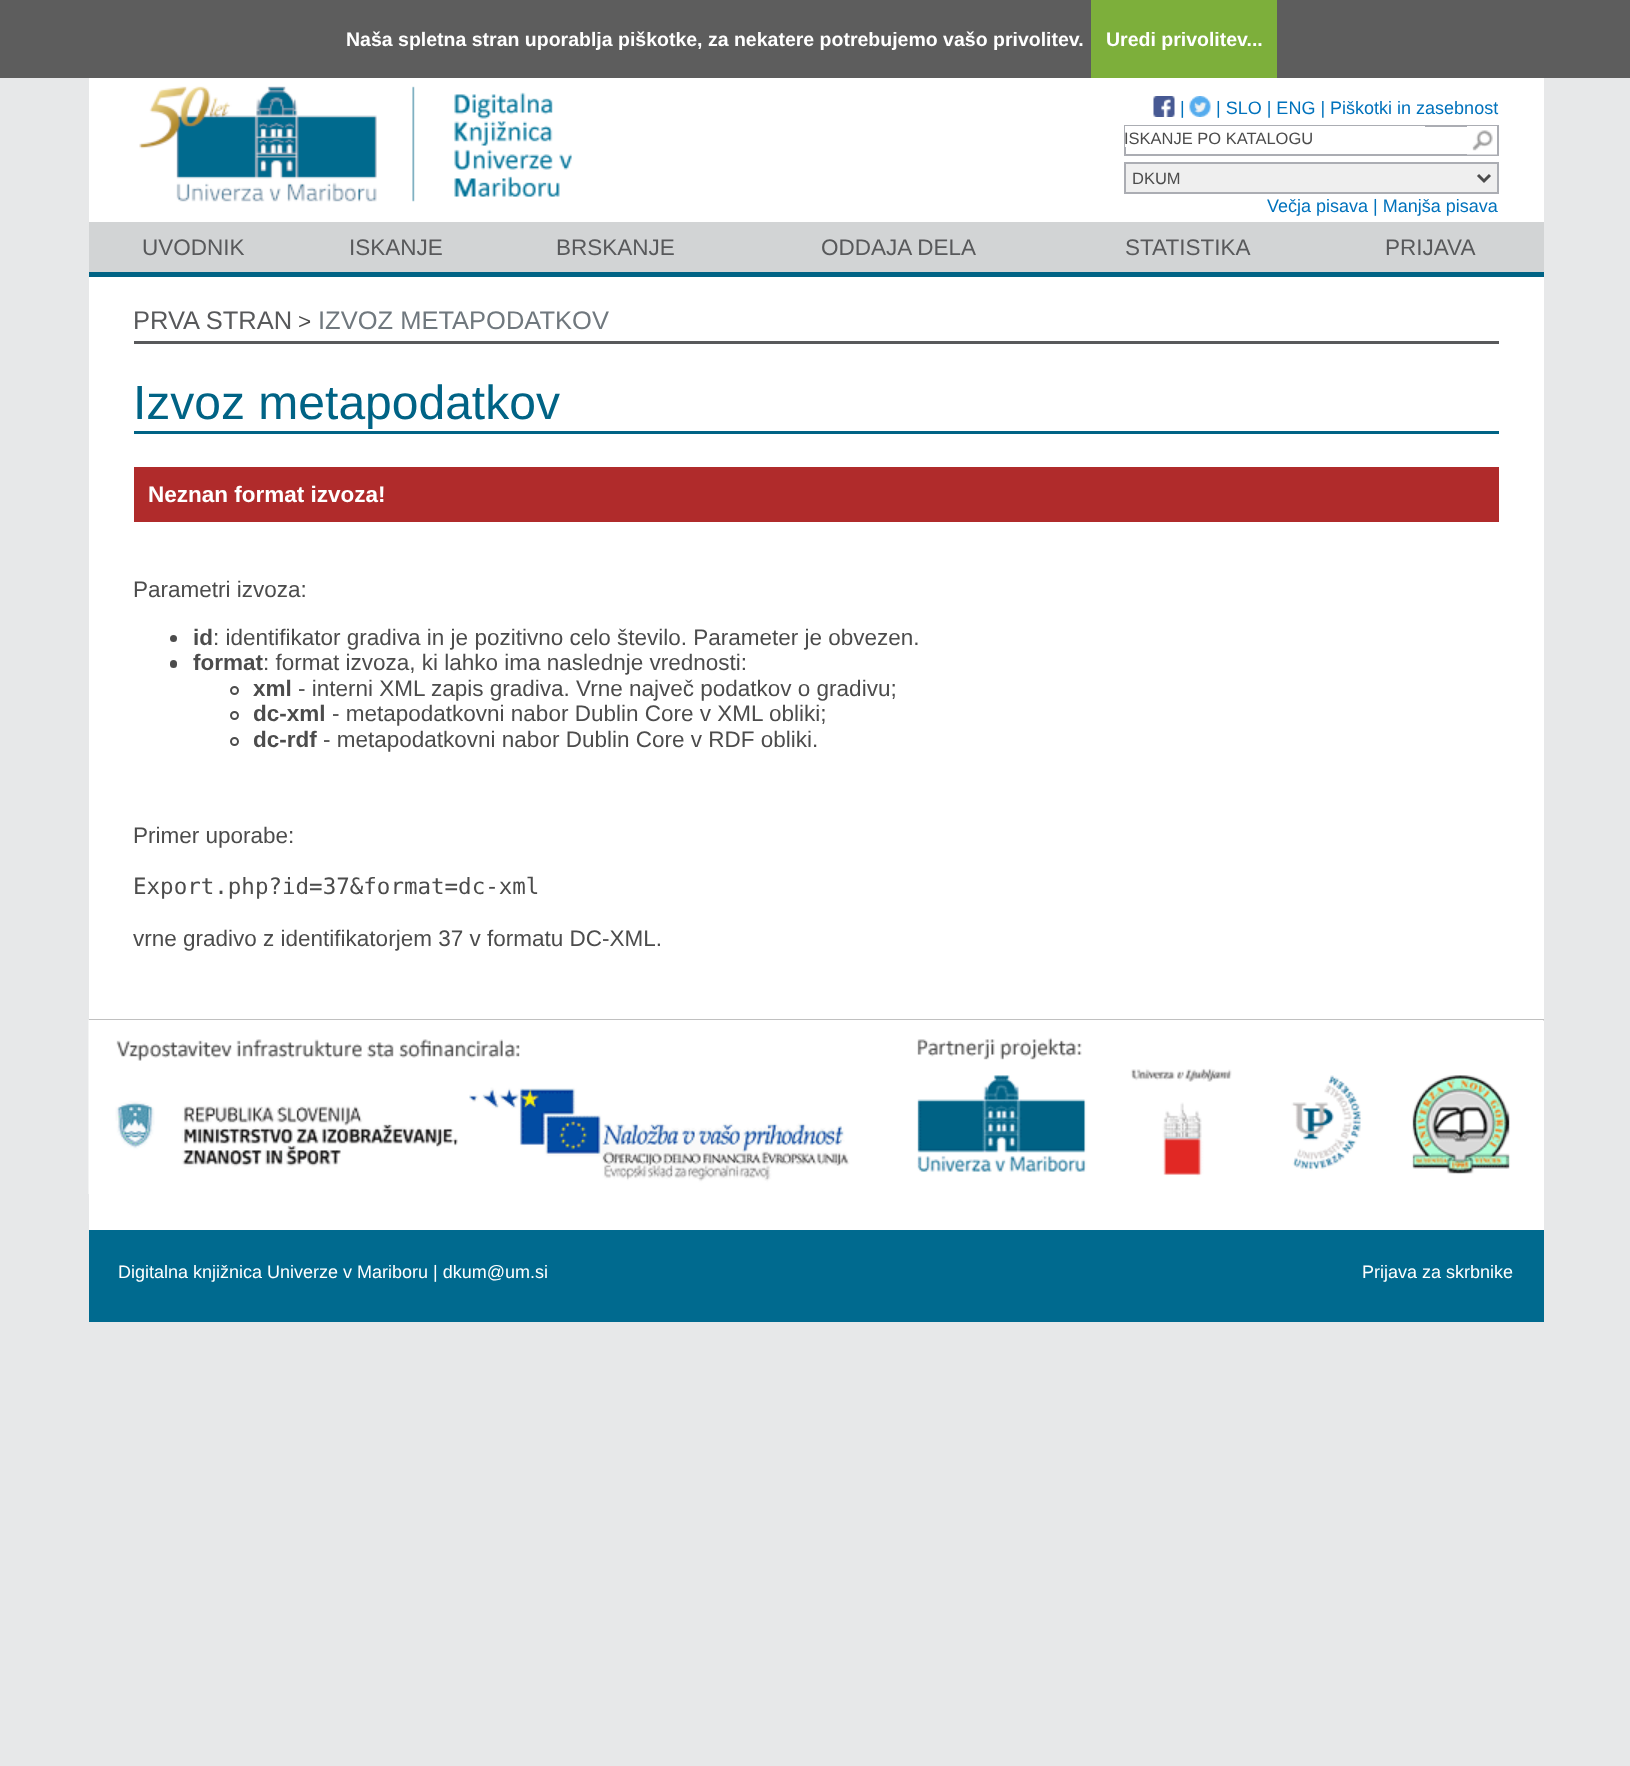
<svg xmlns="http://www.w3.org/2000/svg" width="1630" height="1766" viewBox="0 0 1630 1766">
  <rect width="100%" height="100%" fill="rgb(231,232,233)"/>
  <rect x="0" y="0" width="1630" height="78" fill="rgb(93,93,93)"/>
  <text x="346" y="46" font-family="Liberation Sans" font-size="19.5" font-weight="bold" fill="rgb(255,255,255)">Naša spletna stran uporablja piškotke, za nekatere potrebujemo vašo privolitev.</text>
  <rect x="1091" y="0" width="186" height="78" fill="rgb(125,175,59)"/>
  <text x="1106" y="46" font-family="Liberation Sans" font-size="19.5" font-weight="bold" fill="rgb(255,255,255)">Uredi privolitev...</text>
  <rect x="89" y="78" width="1455" height="1152" fill="rgb(255,255,255)"/>
  <image x="139" y="86" width="433" height="116" href="pic1.png"/>
  <image x="1153" y="96" width="22" height="21" href="pic2.png"/>
  <text x="1180" y="114" font-family="Liberation Sans" font-size="18" fill="rgb(0,114,188)">|</text>
  <image x="1189" y="96" width="22" height="21" href="pic3.png"/>
  <text x="1216" y="114" font-family="Liberation Sans" font-size="18" fill="rgb(0,114,188)">| SLO | ENG | Piškotki in zasebnost</text>
  <rect x="1125" y="126" width="373" height="29" fill="none" stroke="rgb(171,173,179)" stroke-width="2"/>
  <rect x="1125" y="126" width="300" height="21" fill="rgb(255,255,255)"/>
  <text x="1124" y="144" font-family="Liberation Sans" font-size="16.5" fill="rgb(76,76,76)">ISKANJE PO KATALOGU</text>
  <image x="1467" y="126" width="30" height="29" href="pic4.png"/>
  <rect x="1125" y="163" width="373" height="30" fill="rgb(239,239,239)" stroke="rgb(171,173,179)" stroke-width="2"/>
  <path d="M1478 175L1484 181L1490 175" fill="none" stroke="rgb(76,76,76)" stroke-width="3"/>
  <text x="1132" y="184" font-family="Liberation Sans" font-size="16.5" fill="rgb(76,76,76)">DKUM</text>
  <text x="1267" y="212" font-family="Liberation Sans" font-size="18" fill="rgb(0,114,188)">Večja pisava | Manjša pisava</text>
  <rect x="89" y="222" width="1455" height="50" fill="rgb(210,212,213)"/>
  <rect x="89" y="272" width="1455" height="5" fill="rgb(0,99,133)"/>
  <g font-family="Liberation Sans" font-size="22.5" fill="rgb(88,89,91)">
    <text x="142" y="255">UVODNIK</text>
    <text x="349" y="255">ISKANJE</text>
    <text x="556" y="255">BRSKANJE</text>
    <text x="821" y="255">ODDAJA DELA</text>
    <text x="1125" y="255">STATISTIKA</text>
    <text x="1385" y="255">PRIJAVA</text>
  </g>
  <rect x="134" y="341" width="1365" height="3" fill="rgb(88,89,91)"/>
  <text x="133" y="329" font-family="Liberation Sans" font-size="25.5" fill="rgb(88,89,91)">PRVA STRAN</text>
  <text x="298" y="329" font-family="Liberation Sans" font-size="22.5" fill="rgb(76,76,76)">&gt;</text>
  <text x="318" y="329" font-family="Liberation Sans" font-size="25.5" fill="rgb(112,120,126)">IZVOZ METAPODATKOV</text>
  <rect x="134" y="431" width="1365" height="3" fill="rgb(0,99,133)"/>
  <text x="133" y="419" font-family="Liberation Sans" font-size="48" fill="rgb(0,99,133)">Izvoz metapodatkov</text>
  <rect x="134" y="467" width="1365" height="55" fill="rgb(176,43,43)"/>
  <text x="148" y="502" font-family="Liberation Sans" font-size="22.5" font-weight="bold" fill="rgb(255,255,255)">Neznan format izvoza!</text>
  <text x="133" y="597" font-family="Liberation Sans" font-size="22.5" fill="rgb(76,76,76)">Parametri izvoza:</text>
  <circle cx="173.5" cy="638.5" r="3.5" fill="rgb(76,76,76)"/>
  <text x="193" y="645" font-family="Liberation Sans" font-size="22.5" font-weight="bold" fill="rgb(76,76,76)">id</text>
  <text x="213" y="645" font-family="Liberation Sans" font-size="22.5" fill="rgb(76,76,76)">: identifikator gradiva in je pozitivno celo število. Parameter je obvezen.</text>
  <rect x="170" y="660" width="7" height="8" rx="3.5" fill="rgb(76,76,76)"/>
  <text x="193" y="670" font-family="Liberation Sans" font-size="22.5" font-weight="bold" fill="rgb(76,76,76)">format</text>
  <text x="263" y="670" font-family="Liberation Sans" font-size="22.5" fill="rgb(76,76,76)">: format izvoza, ki lahko ima naslednje vrednosti:</text>
  <circle cx="234.5" cy="690.5" r="3.5" fill="none" stroke="rgb(76,76,76)" stroke-width="2"/>
  <text x="253" y="696" font-family="Liberation Sans" font-size="22.5" font-weight="bold" fill="rgb(76,76,76)">xml</text>
  <text x="298" y="696" font-family="Liberation Sans" font-size="22.5" fill="rgb(76,76,76)">- interni XML zapis gradiva. Vrne največ podatkov o gradivu;</text>
  <circle cx="234.5" cy="715.5" r="3.5" fill="none" stroke="rgb(76,76,76)" stroke-width="2"/>
  <text x="253" y="721" font-family="Liberation Sans" font-size="22.5" font-weight="bold" fill="rgb(76,76,76)">dc-xml</text>
  <text x="332" y="721" font-family="Liberation Sans" font-size="22.5" fill="rgb(76,76,76)">- metapodatkovni nabor Dublin Core v XML obliki;</text>
  <circle cx="234.5" cy="741.5" r="3.5" fill="none" stroke="rgb(76,76,76)" stroke-width="2"/>
  <text x="253" y="747" font-family="Liberation Sans" font-size="22.5" font-weight="bold" fill="rgb(76,76,76)">dc-rdf</text>
  <g font-family="Liberation Sans" font-size="22.5" fill="rgb(76,76,76)">
    <text x="323" y="747">- metapodatkovni nabor Dublin Core v RDF obliki.</text>
    <text x="133" y="843">Primer uporabe:</text>
  </g>
  <text x="133" y="894" font-family="DejaVu Sans Mono" font-size="22.5" fill="rgb(76,76,76)">Export.php?id=37&amp;format=dc-xml</text>
  <text x="133" y="946" font-family="Liberation Sans" font-size="22.5" fill="rgb(76,76,76)">vrne gradivo z identifikatorjem 37 v formatu DC-XML.</text>
  <rect x="89" y="1019" width="1455" height="2" fill="rgb(192,192,192)"/>
  <image x="88" y="1020" width="1456" height="174" href="pic5.png"/>
  <rect x="89" y="1230" width="1455" height="92" fill="rgb(0,106,143)"/>
  <g font-family="Liberation Sans" font-size="18" fill="rgb(255,255,255)">
    <text x="118" y="1278">Digitalna knjižnica Univerze v Mariboru | dkum@um.si</text>
    <text x="1362" y="1278">Prijava za skrbnike</text>
  </g>
</svg>
